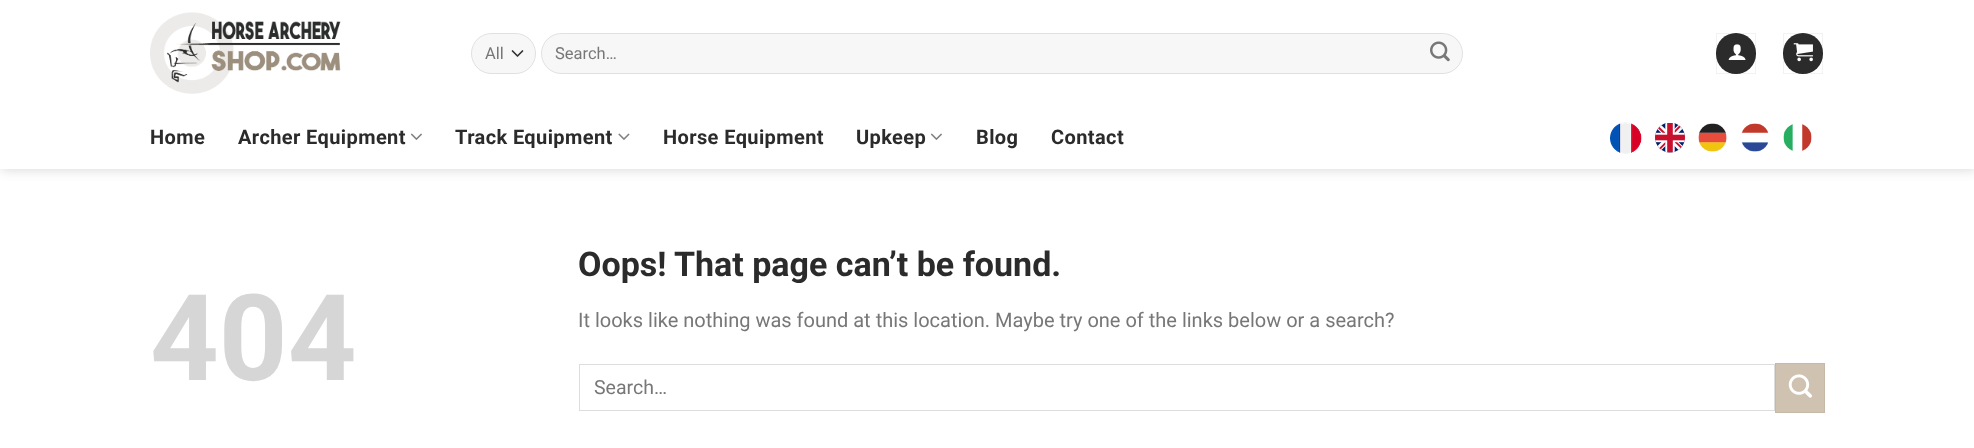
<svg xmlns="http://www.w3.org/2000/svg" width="1974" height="448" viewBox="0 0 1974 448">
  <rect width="100%" height="100%" fill="rgb(255,255,255)"/>
  <rect x="1" y="1" width="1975" height="169" fill="rgba(0,0,0,0.15)" filter="blur(6px)"/>
  <rect x="0" y="0" width="1974" height="169" fill="rgb(255,255,255)"/>
  <image x="150" y="12" width="191" height="82" href="pic1.png"/>
  <rect x="471" y="33" width="65" height="41" rx="20.5" fill="rgb(247,247,247)"/>
  <path d="M512.5 51L517.5 56L522.5 51" fill="none" stroke="rgb(51,51,51)" stroke-width="1.7" stroke-linecap="round" stroke-linejoin="round"/>
  <rect x="471.5" y="33.5" width="64" height="40" rx="20" fill="none" stroke="rgba(0,0,0,0.09)"/>
  <text x="485" y="59" font-family="Roboto" font-size="16.5" fill="rgb(119,119,119)">All</text>
  <rect x="541" y="33" width="922" height="41" rx="20.5" fill="rgb(247,247,247)"/>
  <rect x="541.5" y="33.5" width="921" height="40" rx="20" fill="none" stroke="rgba(0,0,0,0.09)"/>
  <text x="555" y="59" font-family="Roboto" font-size="16.5" fill="rgb(119,119,119)">Search…</text>
  <image x="1430" y="41" width="20" height="21" href="pic2.png"/>
  <rect x="1716" y="33" width="40" height="41" rx="20" fill="rgb(43,43,43)"/>
  <rect x="1716.5" y="33.5" width="39" height="40" fill="none" stroke="rgba(0,0,0,0.05)"/>
  <image x="1728" y="44" width="18" height="16" href="pic3.png"/>
  <rect x="1783" y="33" width="40" height="41" rx="20" fill="rgb(43,43,43)"/>
  <rect x="1783.5" y="33.5" width="39" height="40" fill="none" stroke="rgba(0,0,0,0.05)"/>
  <image x="1793" y="43" width="20" height="19" href="pic4.png"/>
  <g font-family="Roboto" font-size="20" font-weight="bold" letter-spacing="0.4" fill="rgb(43,43,43)">
    <text x="150" y="144">Home</text>
    <text x="238" y="144">Archer Equipment</text>
  </g>
  <image x="410" y="133" width="12" height="7" href="pic5.png"/>
  <text x="455" y="144" font-family="Roboto" font-size="20" font-weight="bold" letter-spacing="0.4" fill="rgb(43,43,43)">Track Equipment</text>
  <image x="618" y="133" width="12" height="7" href="pic6.png"/>
  <g font-family="Roboto" font-size="20" font-weight="bold" letter-spacing="0.4" fill="rgb(43,43,43)">
    <text x="663" y="144">Horse Equipment</text>
    <text x="856" y="144">Upkeep</text>
  </g>
  <image x="930" y="133" width="12" height="7" href="pic5.png"/>
  <g font-family="Roboto" font-size="20" font-weight="bold" letter-spacing="0.4" fill="rgb(43,43,43)">
    <text x="976" y="144">Blog</text>
    <text x="1051" y="144">Contact</text>
  </g>
  <image x="1610" y="122" width="32" height="32" href="pic7.png"/>
  <image x="1655" y="123" width="30" height="30" href="pic8.png"/>
  <image x="1698" y="123" width="29" height="29" href="pic9.png"/>
  <image x="1741" y="123" width="28" height="29" href="pic10.png"/>
  <image x="1783" y="124" width="29" height="27" href="pic11.png"/>
  <text x="150" y="380" font-family="Roboto" font-size="120" font-weight="bold" fill="rgb(214,214,214)">404</text>
  <text x="578" y="276" font-family="Roboto" font-size="34" font-weight="bold" fill="rgb(43,43,43)">Oops! That page can’t be found.</text>
  <text x="578" y="327" font-family="Roboto" font-size="20" fill="rgb(119,119,119)">It looks like nothing was found at this location. Maybe try one of the links below or a search?</text>
  <rect x="579.5" y="364.5" width="1195" height="46" fill="none" stroke="rgb(221,221,221)"/>
  <text x="594" y="394" font-family="Roboto" font-size="19.5" fill="rgb(119,119,119)">Search…</text>
  <rect x="1775.5" y="363.5" width="49" height="49" fill="rgb(207,194,176)" stroke="rgb(197,184,167)"/>
  <image x="1788" y="374" width="24" height="24" href="pic12.png"/>
</svg>
